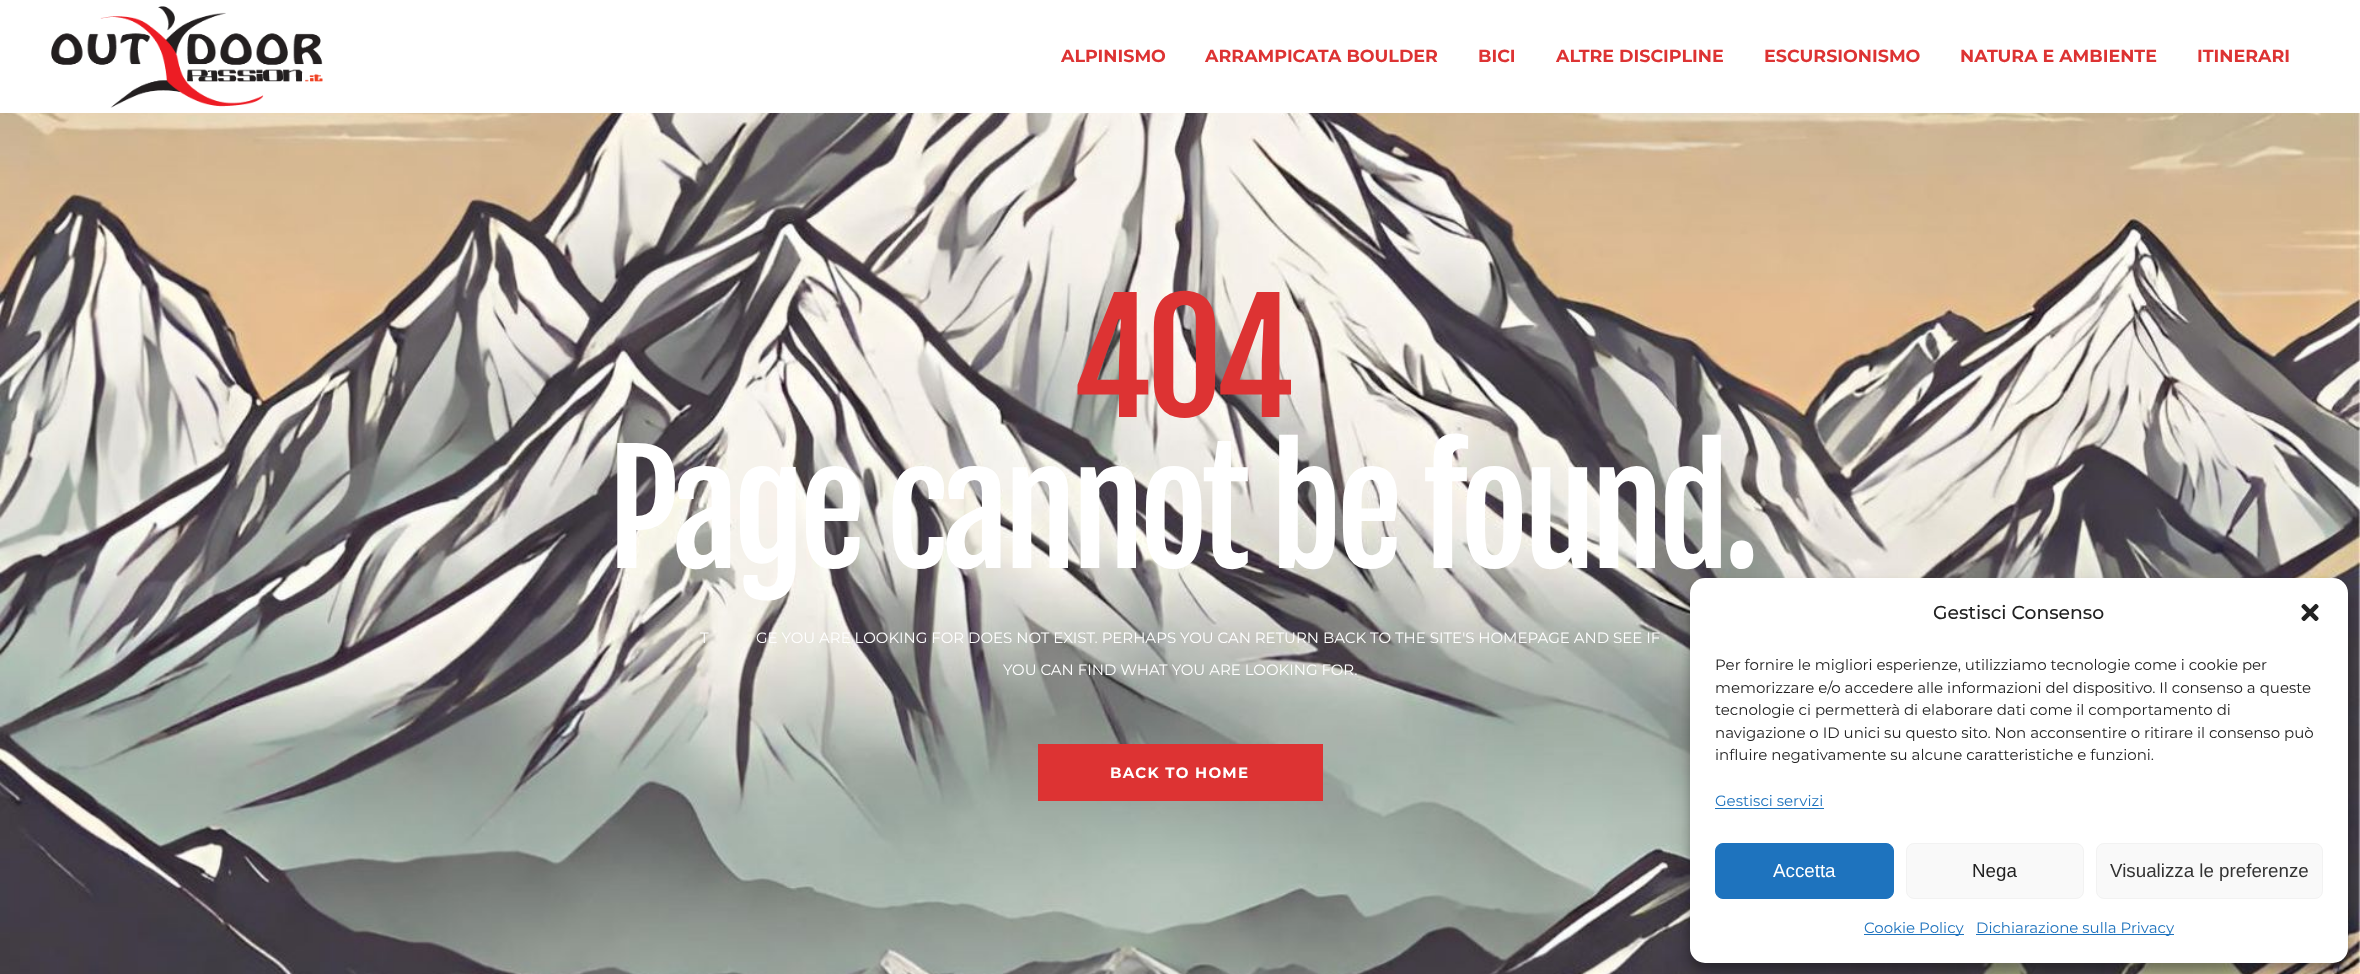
<svg xmlns="http://www.w3.org/2000/svg" width="2360" height="974" viewBox="0 0 2360 974">
  <rect width="100%" height="100%" fill="rgb(255,255,255)"/>
  <image x="51" y="6" width="272" height="102" href="pic1.png"/>
  <g font-family="Montserrat" font-size="17.5" font-weight="bold" fill="rgb(221,51,51)">
    <text x="1061" y="62">ALPINISMO</text>
    <text x="1205" y="62">ARRAMPICATA BOULDER</text>
    <text x="1478" y="62">BICI</text>
    <text x="1556" y="62">ALTRE DISCIPLINE</text>
    <text x="1764" y="62">ESCURSIONISMO</text>
    <text x="1960" y="62">NATURA E AMBIENTE</text>
    <text x="2197" y="62">ITINERARI</text>
  </g>
  <image x="0" y="113" width="2360" height="861" href="pic2.png"/>
  <text x="1072" y="417" font-family="Fjalla One" font-size="150" letter-spacing="-6.25" fill="rgb(221,51,51)">404</text>
  <text x="607" y="568" font-family="Fjalla One" font-size="150" letter-spacing="-6.25" fill="rgb(255,255,255)">Page cannot be found.</text>
  <g font-family="Montserrat" font-size="15" fill="rgb(255,255,255)">
    <text x="700" y="643">T</text>
    <text x="756" y="643">GE YOU ARE LOOKING FOR DOES NOT EXIST. PERHAPS YOU CAN RETURN BACK TO THE SITE'S HOMEPAGE AND SEE IF</text>
    <text x="1003" y="675">YOU CAN FIND WHAT YOU ARE LOOKING FOR.</text>
  </g>
  <rect x="1038" y="744" width="285" height="57" fill="rgb(221,51,51)"/>
  <text x="1110" y="778" font-family="Montserrat" font-size="15" font-weight="bold" letter-spacing="1.25" fill="rgb(255,255,255)">BACK TO HOME</text>
  <rect x="1690" y="585" width="658" height="385" rx="15" fill="rgba(0,0,0,0.23)" filter="blur(4px)"/>
  <rect x="1690" y="590" width="658" height="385" rx="15" fill="rgba(0,0,0,0.19)" filter="blur(12.5px)"/>
  <rect x="1690" y="578" width="658" height="385" rx="15" fill="rgb(255,255,255)"/>
  <text x="1933" y="619" font-family="Montserrat" font-size="18.75" font-weight="500" fill="rgb(34,34,34)">Gestisci Consenso</text>
  <image x="2301" y="603" width="18" height="18" href="pic3.png"/>
  <g font-family="Montserrat" font-size="15" fill="rgb(34,34,34)">
    <text>
      <tspan x="1715" y="670">Per fornire le migliori esperienze, utilizziamo tecnologie come i cookie per</tspan>
      <tspan x="1715" y="693">memorizzare e/o accedere alle informazioni del dispositivo. Il consenso a queste</tspan>
      <tspan x="1715" y="715">tecnologie ci permetterà di elaborare dati come il comportamento di</tspan>
      <tspan x="1715" y="738">navigazione o ID unici su questo sito. Non acconsentire o ritirare il consenso può</tspan>
      <tspan x="1715" y="760">influire negativamente su alcune caratteristiche e funzioni.</tspan>
    </text>
  </g>
  <text x="1715" y="806" font-family="Montserrat" font-size="15" fill="rgb(30,115,190)">Gestisci servizi</text>
  <rect x="1715" y="808" width="109" height="1" fill="rgb(30,115,190)"/>
  <rect x="1715.5" y="843.5" width="178" height="55" rx="7.5" fill="rgb(30,115,190)" stroke="rgb(30,115,190)"/>
  <text x="1773" y="877" font-family="Liberation Sans" font-size="18.75" fill="rgb(255,255,255)">Accetta</text>
  <rect x="1906.5" y="843.5" width="177" height="55" rx="7.5" fill="rgb(249,249,249)" stroke="rgb(242,242,242)"/>
  <text x="1972" y="877" font-family="Liberation Sans" font-size="18.75" fill="rgb(34,34,34)">Nega</text>
  <rect x="2096.5" y="843.5" width="226" height="55" rx="7.5" fill="rgb(249,249,249)" stroke="rgb(242,242,242)"/>
  <text x="2110" y="877" font-family="Liberation Sans" font-size="18.75" fill="rgb(51,51,51)">Visualizza le preferenze</text>
  <rect x="1864" y="934" width="100" height="1" fill="rgb(30,115,190)"/>
  <text x="1864" y="933" font-family="Montserrat" font-size="15" fill="rgb(30,115,190)">Cookie Policy</text>
  <rect x="1976" y="934" width="198" height="1" fill="rgb(30,115,190)"/>
  <text x="1976" y="933" font-family="Montserrat" font-size="15" fill="rgb(30,115,190)">Dichiarazione sulla Privacy</text>
</svg>
